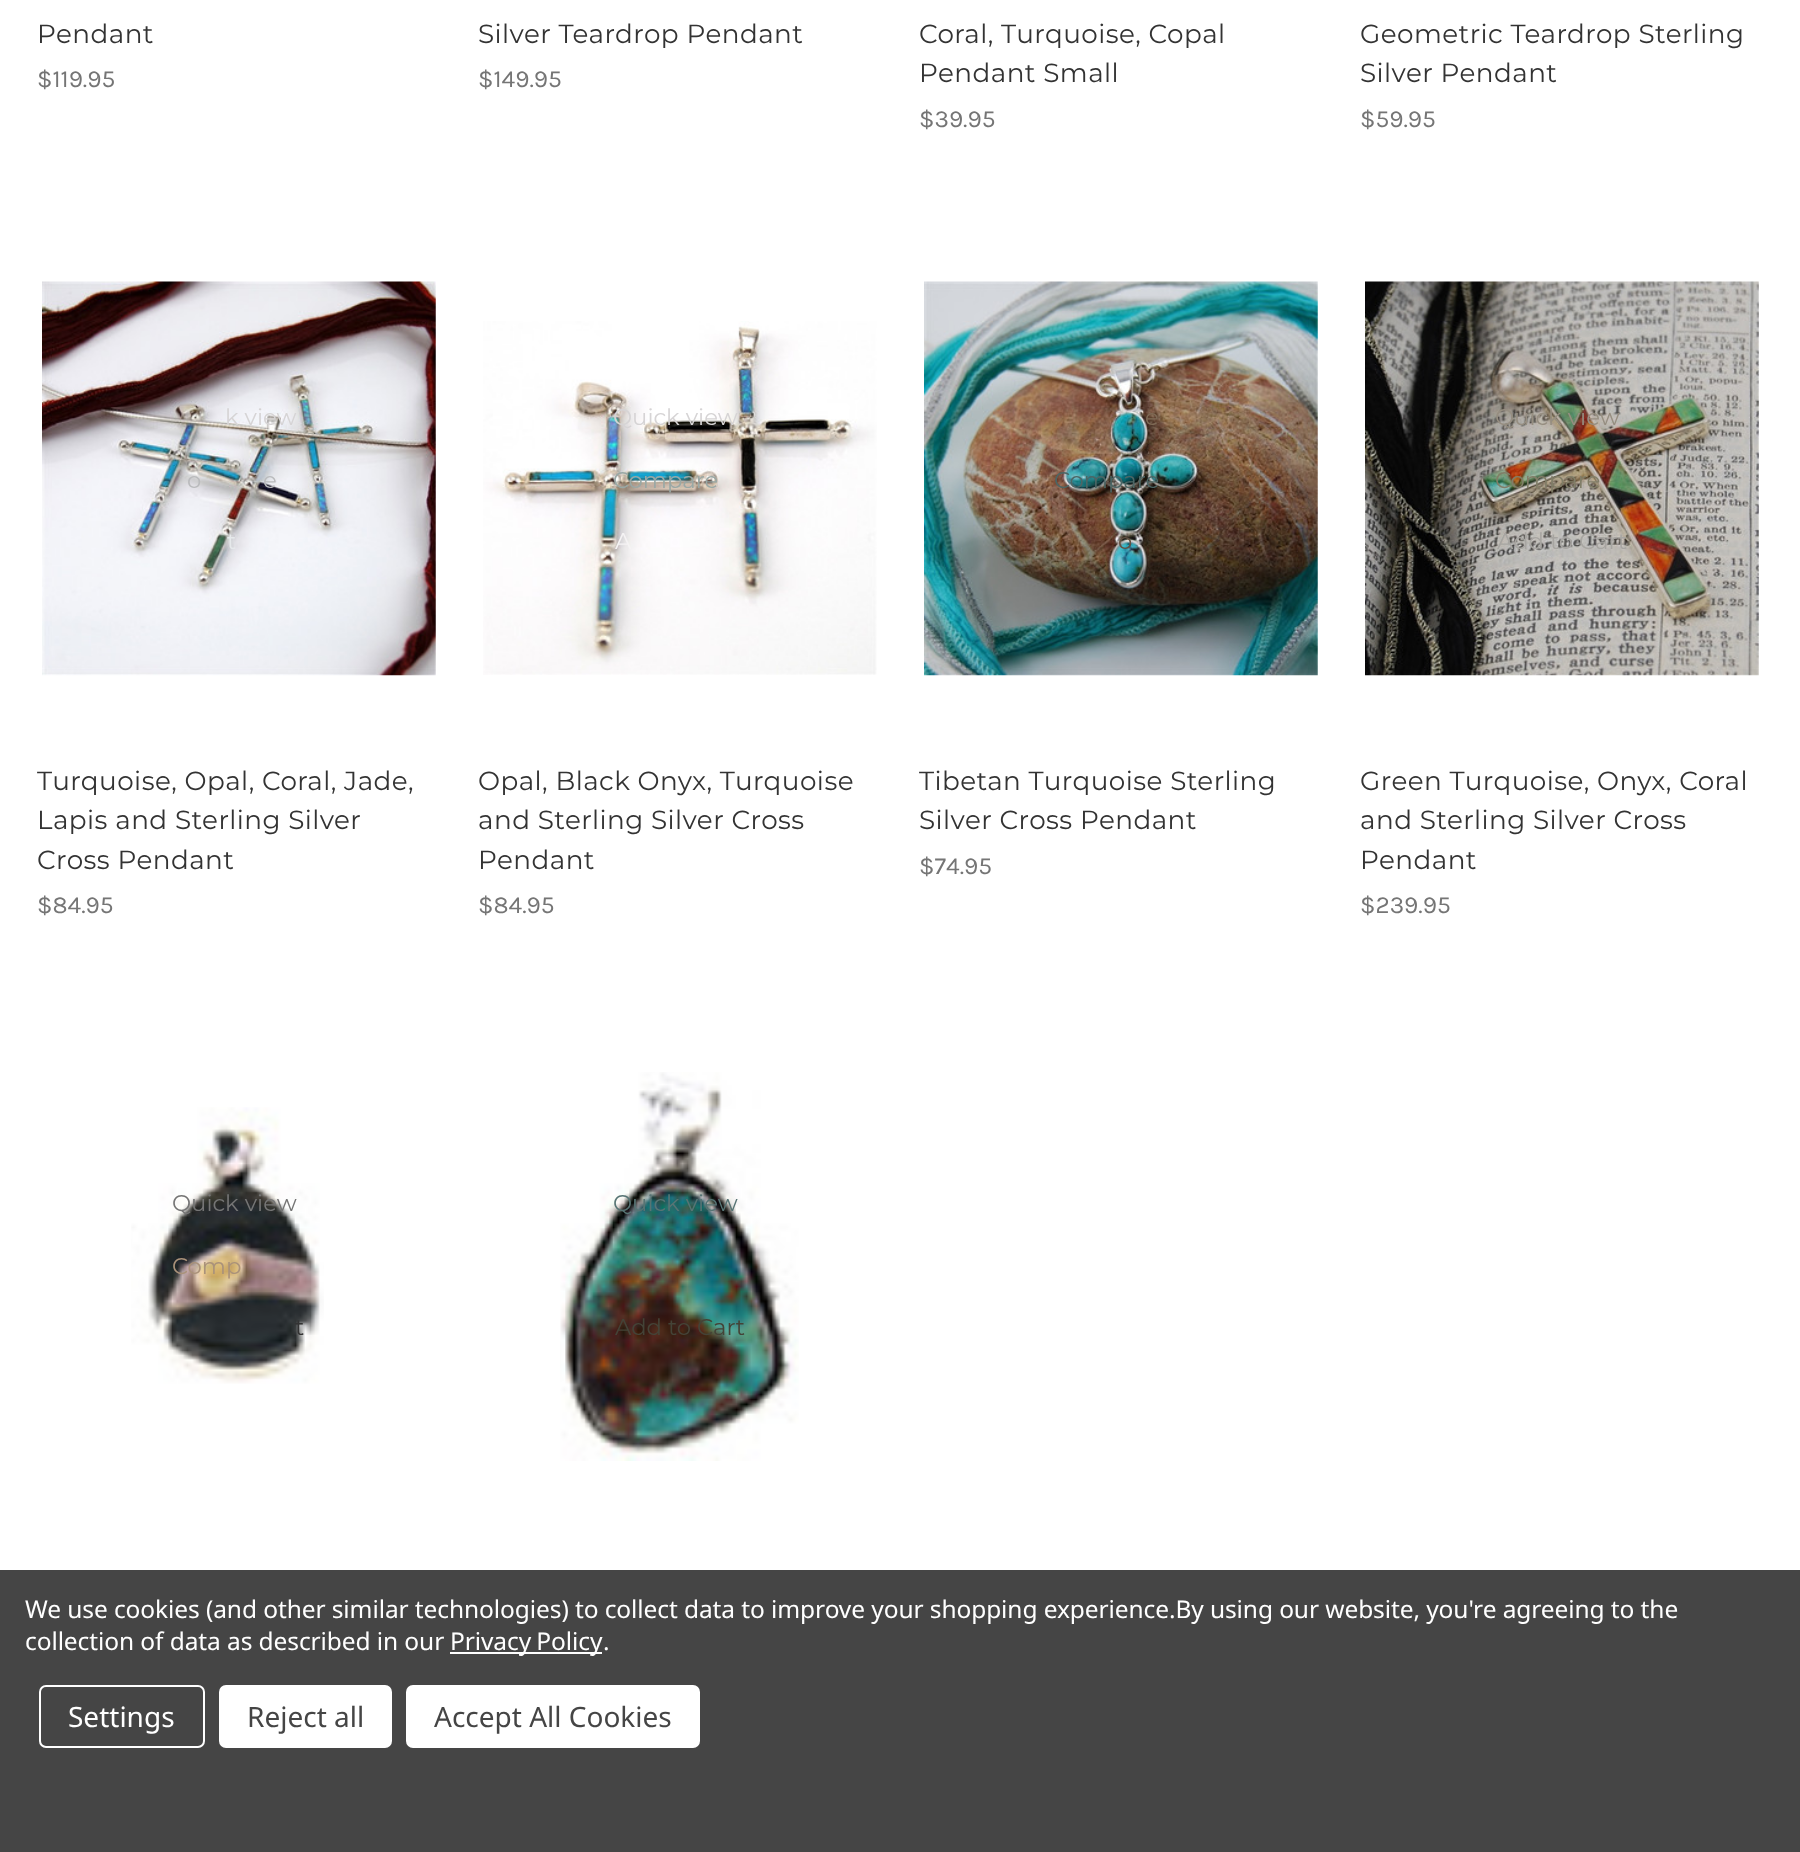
<svg xmlns="http://www.w3.org/2000/svg" width="1800" height="1852" viewBox="0 0 1800 1852">
  <rect width="100%" height="100%" fill="rgb(255,255,255)"/>
  <text x="37" y="43" font-family="Montserrat" font-size="26.25" letter-spacing="0.45" fill="rgb(51,51,51)">Pendant</text>
  <text x="37" y="87" font-family="Karla" font-size="24.5" fill="rgb(117,117,117)">$119.95</text>
  <text x="478" y="43" font-family="Montserrat" font-size="26.25" letter-spacing="0.45" fill="rgb(51,51,51)">Silver Teardrop Pendant</text>
  <text x="478" y="87" font-family="Karla" font-size="24.5" fill="rgb(117,117,117)">$149.95</text>
  <g font-family="Montserrat" font-size="26.25" letter-spacing="0.45" fill="rgb(51,51,51)">
    <text>
      <tspan x="919" y="43">Coral, Turquoise, Copal</tspan>
      <tspan x="919" y="82">Pendant Small</tspan>
    </text>
  </g>
  <text x="919" y="127" font-family="Karla" font-size="24.5" fill="rgb(117,117,117)">$39.95</text>
  <g font-family="Montserrat" font-size="26.25" letter-spacing="0.45" fill="rgb(51,51,51)">
    <text>
      <tspan x="1360" y="43">Geometric Teardrop Sterling</tspan>
      <tspan x="1360" y="82">Silver Pendant</tspan>
    </text>
  </g>
  <text x="1360" y="127" font-family="Karla" font-size="24.5" fill="rgb(117,117,117)">$59.95</text>
  <image x="42" y="281" width="394" height="395" href="pic1.png"/>
  <text x="225" y="425" font-family="Montserrat" font-size="22.75" fill="rgb(214,212,213)">k view</text>
  <g font-family="Montserrat" font-size="22.75" fill="rgb(186,187,189)">
    <text x="187" y="488">o</text>
    <text x="263" y="488">e</text>
  </g>
  <text x="227" y="549" font-family="Montserrat" font-size="22.75" fill="rgb(230,233,235)">t</text>
  <g font-family="Montserrat" font-size="26.25" letter-spacing="0.45" fill="rgb(51,51,51)">
    <text>
      <tspan x="37" y="790">Turquoise, Opal, Coral, Jade,</tspan>
      <tspan x="37" y="829">Lapis and Sterling Silver</tspan>
      <tspan x="37" y="869">Cross Pendant</tspan>
    </text>
  </g>
  <text x="37" y="913" font-family="Karla" font-size="24.5" fill="rgb(117,117,117)">$84.95</text>
  <image x="483" y="321" width="394" height="354" href="pic2.png"/>
  <text x="613" y="425" font-family="Montserrat" font-size="22.75" fill="rgb(214,212,213)">Quick view</text>
  <text x="613" y="488" font-family="Montserrat" font-size="22.75" fill="rgb(153,168,165)">Compare</text>
  <text x="615" y="549" font-family="Montserrat" font-size="22.75" fill="rgb(245,243,244)">A</text>
  <g font-family="Montserrat" font-size="26.25" letter-spacing="0.45" fill="rgb(51,51,51)">
    <text>
      <tspan x="478" y="790">Opal, Black Onyx, Turquoise</tspan>
      <tspan x="478" y="829">and Sterling Silver Cross</tspan>
      <tspan x="478" y="869">Pendant</tspan>
    </text>
  </g>
  <text x="478" y="913" font-family="Karla" font-size="24.5" fill="rgb(117,117,117)">$84.95</text>
  <image x="924" y="281" width="394" height="395" href="pic3.png"/>
  <text x="1145" y="425" font-family="Montserrat" font-size="22.75" fill="rgb(126,106,85)">e</text>
  <text x="1054" y="488" font-family="Montserrat" font-size="22.75" fill="rgb(76,102,101)">Compare</text>
  <text x="1118" y="549" font-family="Montserrat" font-size="22.75" fill="rgb(98,81,66)">o</text>
  <g font-family="Montserrat" font-size="26.25" letter-spacing="0.45" fill="rgb(51,51,51)">
    <text>
      <tspan x="919" y="790">Tibetan Turquoise Sterling</tspan>
      <tspan x="919" y="829">Silver Cross Pendant</tspan>
    </text>
  </g>
  <text x="919" y="874" font-family="Karla" font-size="24.5" fill="rgb(117,117,117)">$74.95</text>
  <image x="1365" y="281" width="394" height="395" href="pic4.png"/>
  <text x="1495" y="425" font-family="Montserrat" font-size="22.75" fill="rgb(150,142,129)">Quick view</text>
  <text x="1495" y="488" font-family="Montserrat" font-size="22.75" fill="rgb(129,126,104)">Compare</text>
  <text x="1497" y="549" font-family="Montserrat" font-size="22.75" fill="rgb(167,165,161)">Add to Cart</text>
  <g font-family="Montserrat" font-size="26.25" letter-spacing="0.45" fill="rgb(51,51,51)">
    <text>
      <tspan x="1360" y="790">Green Turquoise, Onyx, Coral</tspan>
      <tspan x="1360" y="829">and Sterling Silver Cross</tspan>
      <tspan x="1360" y="869">Pendant</tspan>
    </text>
  </g>
  <text x="1360" y="913" font-family="Karla" font-size="24.5" fill="rgb(117,117,117)">$239.95</text>
  <image x="131" y="1107" width="193" height="277" href="pic5.png"/>
  <text x="172" y="1211" font-family="Montserrat" font-size="22.75" fill="rgb(117,117,117)">Quick view</text>
  <text x="172" y="1274" font-family="Montserrat" font-size="22.75" fill="rgb(170,146,122)">Comp</text>
  <text x="295" y="1335" font-family="Montserrat" font-size="22.75" fill="rgb(51,51,51)">t</text>
  <image x="560" y="1072" width="239" height="389" href="pic6.png"/>
  <text x="613" y="1211" font-family="Montserrat" font-size="22.75" fill="rgb(87,116,116)">Quick view</text>
  <text x="615" y="1335" font-family="Montserrat" font-size="22.75" fill="rgb(68,67,55)">Add to Cart</text>
  <rect x="0" y="1570" width="1800" height="282" fill="rgb(69,69,69)"/>
  <g font-family="Noto Sans" font-size="24.5" letter-spacing="-0.09" fill="rgb(255,255,255)">
    <text>
      <tspan x="25" y="1618">We use cookies (and other similar technologies) to collect data to improve your shopping experience.By using our website, you're agreeing to the</tspan>
      <tspan x="25" y="1650">collection of data as described in our</tspan>
    </text>
  </g>
  <rect x="450" y="1652" width="152" height="2" fill="rgb(255,255,255)"/>
  <g font-family="Noto Sans" font-size="24.5" letter-spacing="-0.09" fill="rgb(255,255,255)">
    <text x="450" y="1650" word-spacing="-1">Privacy Policy</text>
    <text x="603" y="1650">.</text>
  </g>
  <rect x="40" y="1686" width="164" height="61" rx="6" fill="none" stroke="rgb(255,255,255)" stroke-width="2"/>
  <text x="68" y="1727" font-family="Noto Sans" font-size="28" fill="rgb(255,255,255)">Settings</text>
  <rect x="219" y="1685" width="173" height="63" rx="7" fill="rgb(255,255,255)"/>
  <text x="247" y="1727" font-family="Noto Sans" font-size="28" fill="rgb(69,69,69)">Reject all</text>
  <rect x="406" y="1685" width="294" height="63" rx="7" fill="rgb(255,255,255)"/>
  <text x="434" y="1727" font-family="Noto Sans" font-size="28" fill="rgb(69,69,69)">Accept All Cookies</text>
</svg>
